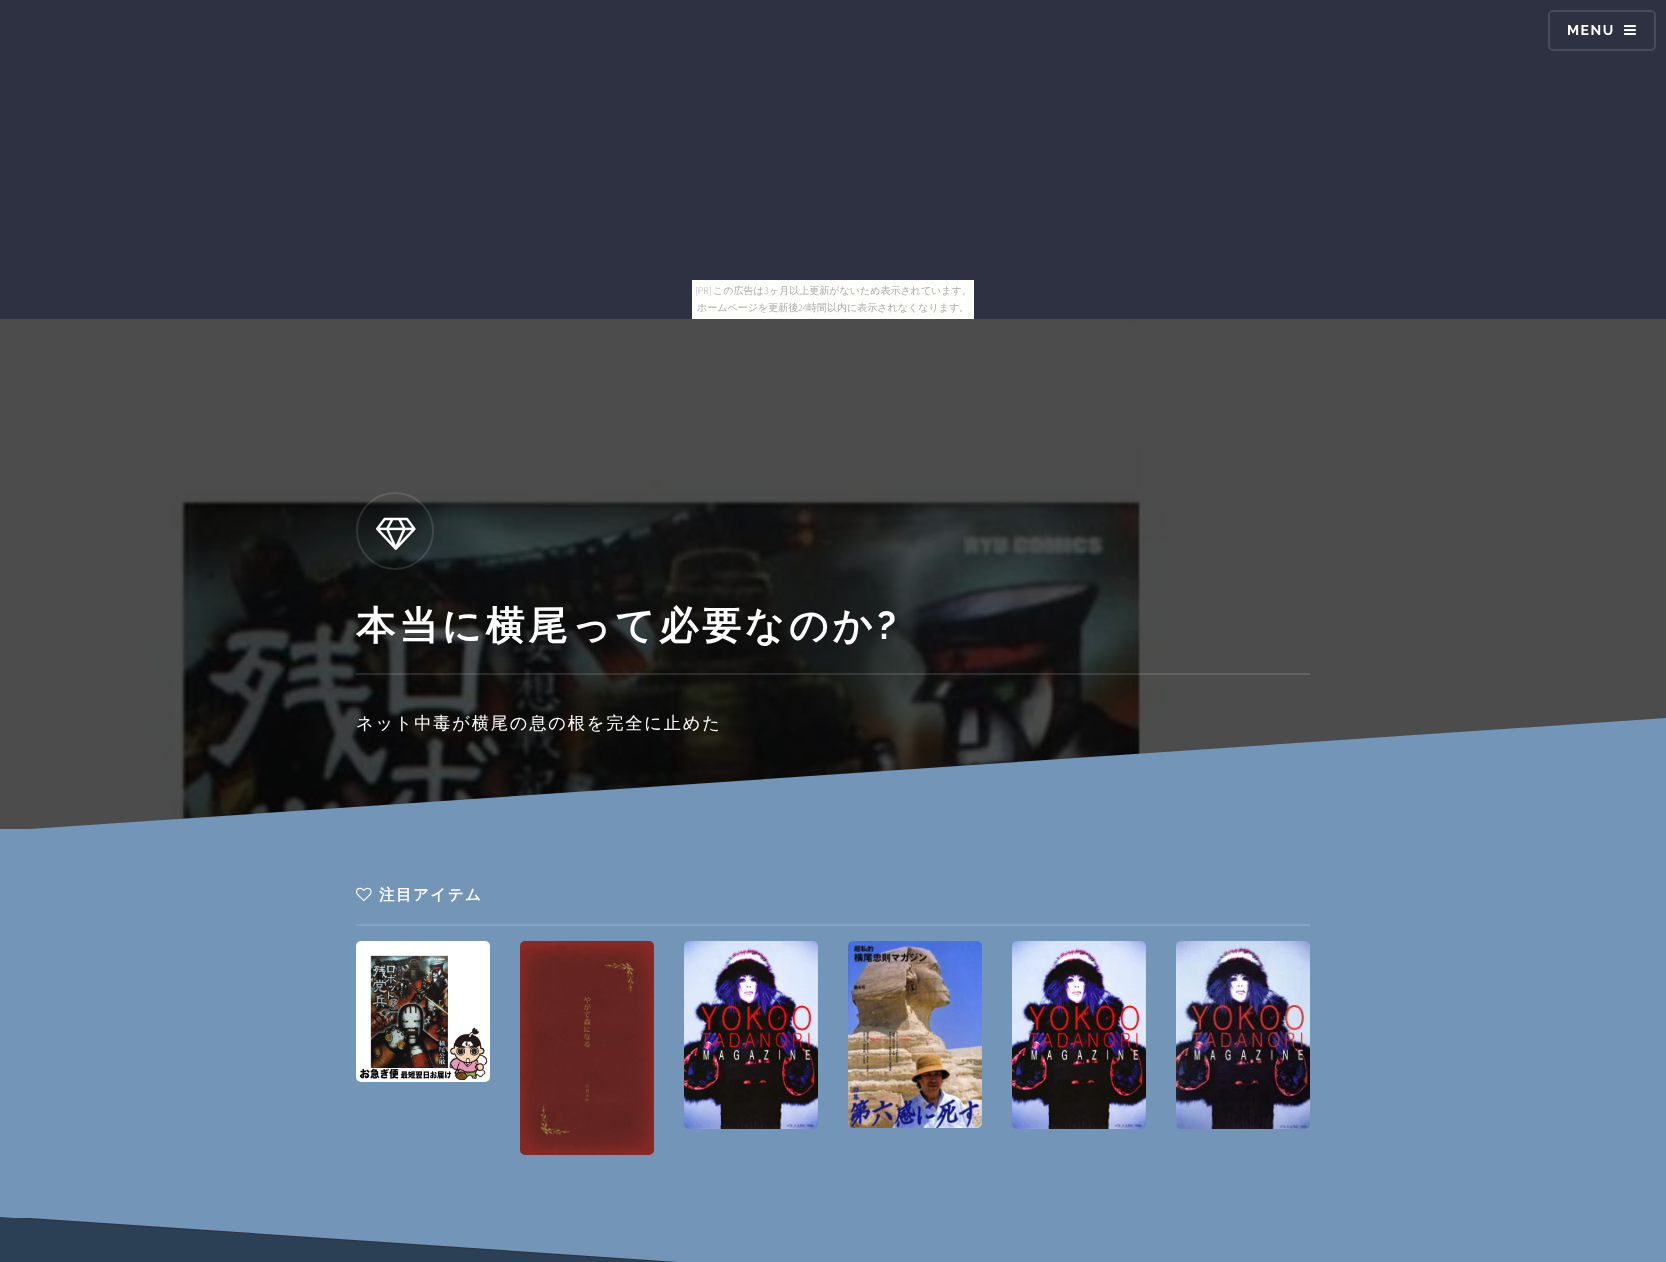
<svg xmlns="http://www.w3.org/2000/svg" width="1666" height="1262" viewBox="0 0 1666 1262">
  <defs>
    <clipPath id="clip1"><rect x="0" y="718" width="1666" height="112"/></clipPath>
    <clipPath id="clip2"><rect x="0" y="1217" width="1666" height="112"/></clipPath>
  </defs>
  <rect width="100%" height="100%" fill="rgb(46,49,65)"/>
  <rect x="1549" y="11" width="106" height="39" rx="4" fill="none" stroke="rgb(72,75,89)" stroke-width="2"/>
  <text x="1567" y="35" font-family="Raleway" font-size="14" font-weight="bold" letter-spacing="1.5" fill="rgb(255,255,255)">MENU</text>
  <image x="1624" y="25" width="12" height="10" href="pic1.png"/>
  <image x="0" y="319" width="1666" height="510" href="pic2.png"/>
  <circle cx="395" cy="531" r="38" fill="none" stroke="rgba(255,255,255,0.12)" stroke-width="2"/>
  <image x="376" y="517" width="40" height="33" href="pic3.png"/>
  <rect x="356" y="673" width="954" height="2" fill="rgba(255,255,255,0.12)"/>
  <text x="356" y="639" font-family="WenQuanYi Zen Hei" font-size="39" font-weight="bold" letter-spacing="3.9" fill="rgb(255,255,255)">本当に横尾って必要なのか</text>
  <text x="877" y="639" font-family="Raleway" font-size="39" font-weight="bold" letter-spacing="3.9" fill="rgb(255,255,255)">?</text>
  <text x="356" y="729" font-family="WenQuanYi Zen Hei" font-size="17.3" font-weight="500" letter-spacing="1.75" fill="rgb(255,255,255)">ネット中毒が横尾の息の根を完全に止めた</text>
  <rect x="0" y="830" width="1666" height="387" fill="rgb(114,149,184)"/>
  <g clip-path="url(#clip1)">
    <path d="M0 831L1666 718V831Z" fill="rgb(114,149,184)"/>
  </g>
  <rect x="0" y="829" width="29" height="1" fill="rgb(114,149,184)"/>
  <rect x="356" y="924" width="954" height="2" fill="rgb(132,162,193)"/>
  <image x="356" y="887" width="16" height="15" href="pic4.png"/>
  <text x="379" y="900" font-family="WenQuanYi Zen Hei" font-size="15.5" font-weight="bold" letter-spacing="1.5" fill="rgb(255,255,255)">注目アイテム</text>
  <image x="356" y="941" width="134" height="141" href="pic5.png"/>
  <image x="520" y="941" width="134" height="214" href="pic6.png"/>
  <image x="684" y="941" width="134" height="188" href="pic7.png"/>
  <image x="848" y="941" width="134" height="187" href="pic8.png"/>
  <image x="1012" y="941" width="134" height="188" href="pic9.png"/>
  <image x="1176" y="941" width="134" height="188" href="pic10.png"/>
  <g clip-path="url(#clip2)">
    <path d="M0 1216L1666 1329V1216Z" fill="rgb(114,149,184)"/>
  </g>
  <rect x="0" y="1217" width="29" height="1" fill="rgb(114,149,184)"/>
  <path d="M1666 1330L0 1217V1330Z" fill="rgb(43,64,85)"/>
  <rect x="692" y="280" width="282" height="39" fill="rgb(255,255,252)"/>
  <text x="695" y="294" font-family="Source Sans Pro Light" font-size="10" font-weight="300" fill="rgb(170,170,170)">[PR]</text>
  <text x="713" y="294" font-family="WenQuanYi Zen Hei" font-size="10" font-weight="500" fill="rgb(170,170,170)">この広告は</text>
  <text x="764" y="294" font-family="Source Sans Pro Light" font-size="10" font-weight="300" fill="rgb(170,170,170)">3</text>
  <g font-family="WenQuanYi Zen Hei" font-size="10" font-weight="500" fill="rgb(170,170,170)">
    <text x="769" y="294">ヶ月以上更新がないため表示されています。</text>
    <text x="697" y="311">ホームページを更新後</text>
  </g>
  <text x="798" y="311" font-family="Source Sans Pro Light" font-size="10" font-weight="300" fill="rgb(170,170,170)">24</text>
  <text x="807" y="311" font-family="WenQuanYi Zen Hei" font-size="10" font-weight="500" fill="rgb(170,170,170)">時間以内に表示されなくなります。</text>
</svg>
